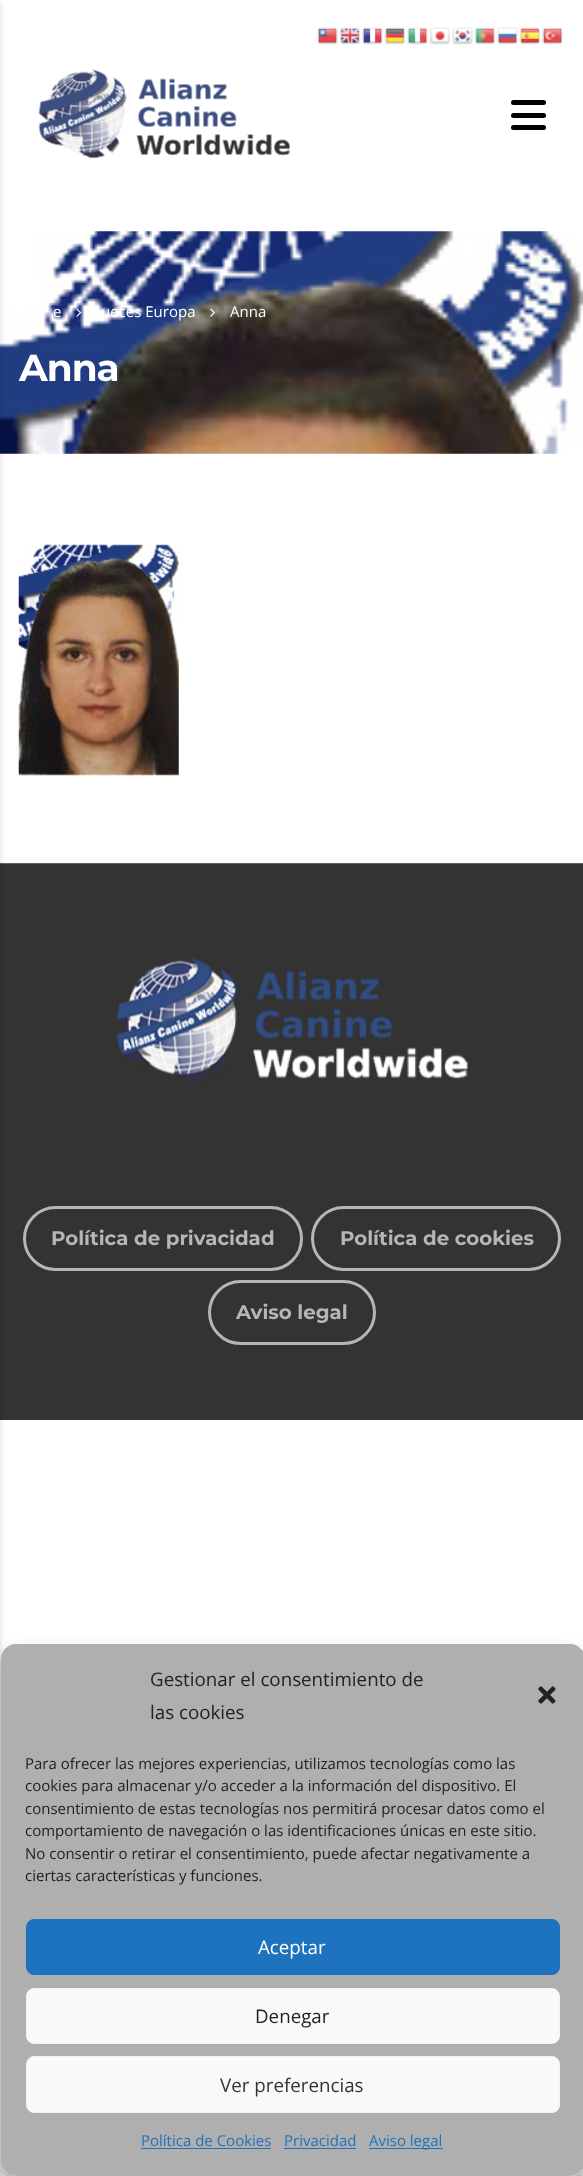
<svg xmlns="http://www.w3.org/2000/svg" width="583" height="2176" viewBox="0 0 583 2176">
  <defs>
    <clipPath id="clip1"><path d="M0 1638H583V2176H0ZM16 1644H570C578.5 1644 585 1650.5 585 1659V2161C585 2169.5 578.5 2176 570 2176H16C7.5 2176 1 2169.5 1 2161V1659C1 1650.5 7.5 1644 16 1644Z" clip-rule="evenodd"/></clipPath>
    <clipPath id="clip2"><path d="M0 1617H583V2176H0ZM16 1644H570C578.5 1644 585 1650.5 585 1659V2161C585 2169.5 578.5 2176 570 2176H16C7.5 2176 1 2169.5 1 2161V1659C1 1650.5 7.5 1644 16 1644Z" clip-rule="evenodd"/></clipPath>
  </defs>
  <rect width="100%" height="100%" fill="rgb(255,255,255)"/>
  <image x="317" y="27" width="21" height="18" href="pic1.png"/>
  <image x="340" y="27" width="20" height="18" href="pic2.png"/>
  <image x="362" y="27" width="21" height="18" href="pic3.png"/>
  <image x="385" y="27" width="20" height="18" href="pic4.png"/>
  <image x="407" y="27" width="21" height="18" href="pic5.png"/>
  <image x="430" y="27" width="20" height="18" href="pic6.png"/>
  <image x="452" y="27" width="21" height="18" href="pic7.png"/>
  <image x="475" y="27" width="20" height="18" href="pic8.png"/>
  <image x="497" y="27" width="21" height="18" href="pic9.png"/>
  <image x="520" y="27" width="20" height="18" href="pic10.png"/>
  <image x="542" y="27" width="21" height="18" href="pic11.png"/>
  <image x="0" y="231" width="583" height="223" href="pic13.png"/>
  <rect x="0" y="864" width="583" height="556" fill="rgb(51,51,51)"/>
  <rect x="0" y="863" width="583" height="1" fill="rgb(98,98,98)"/>
  <rect x="-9" y="4" width="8" height="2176" fill="rgba(0,0,0,0.2)" filter="blur(3px)"/>
  <image x="38" y="69" width="252" height="90" href="pic12.png"/>
  <rect x="511" y="100" width="35" height="5" rx="2.5" fill="rgb(0,0,0)"/>
  <rect x="511" y="113" width="35" height="5" rx="2.5" fill="rgb(0,0,0)"/>
  <rect x="511" y="125" width="35" height="5" rx="2.5" fill="rgb(0,0,0)"/>
  <text x="53" y="317" font-family="Open Sans" font-size="15" fill="rgb(255,255,255)">e</text>
  <image x="76" y="308" width="6" height="9" href="pic14.png"/>
  <text x="101" y="317" font-family="Open Sans" font-size="15" fill="rgb(255,255,255)">ueces Europa</text>
  <image x="210" y="308" width="5" height="9" href="pic15.png"/>
  <text x="230" y="317" font-family="Open Sans" font-size="15" fill="rgb(255,255,255)">Anna</text>
  <text x="19" y="381" font-family="Montserrat" font-size="37.5" font-weight="bold" letter-spacing="-1" fill="rgb(255,255,255)">Anna</text>
  <image x="18" y="544" width="161" height="232" href="pic16.png"/>
  <image x="116" y="957" width="352" height="125" href="pic17.png"/>
  <rect x="24.5" y="1207.5" width="277" height="62" rx="31" fill="none" stroke="rgb(182,182,182)" stroke-width="3"/>
  <text x="51" y="1245" font-family="Montserrat" font-size="19.75" font-weight="bold" fill="rgb(182,182,182)">Política de privacidad</text>
  <rect x="312.5" y="1207.5" width="247" height="62" rx="31" fill="none" stroke="rgb(182,182,182)" stroke-width="3"/>
  <text x="340" y="1245" font-family="Montserrat" font-size="19.75" font-weight="bold" fill="rgb(182,182,182)">Política de cookies</text>
  <rect x="209.5" y="1281.5" width="165" height="62" rx="31" fill="none" stroke="rgb(182,182,182)" stroke-width="3"/>
  <text x="236" y="1319" font-family="Montserrat" font-size="19.75" font-weight="bold" fill="rgb(182,182,182)">Aviso legal</text>
  <g clip-path="url(#clip1)">
    <rect x="1" y="1651" width="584" height="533" rx="15" fill="rgba(0,0,0,0.23)" filter="blur(4px)"/>
  </g>
  <g clip-path="url(#clip2)">
    <rect x="1" y="1656" width="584" height="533" rx="15" fill="rgba(0,0,0,0.19)" filter="blur(12.5px)"/>
  </g>
  <rect x="1" y="1644" width="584" height="532" rx="15" fill="rgb(175,175,175)"/>
  <g font-family="Open Sans" font-size="18.75" fill="rgb(34,34,34)">
    <text>
      <tspan x="150" y="1686">Gestionar el consentimiento de</tspan>
      <tspan x="150" y="1719">las cookies</tspan>
    </text>
  </g>
  <image x="538" y="1686" width="18" height="18" href="pic18.png"/>
  <g font-family="Open Sans" font-size="15" fill="rgb(34,34,34)">
    <text>
      <tspan x="25" y="1769">Para ofrecer las mejores experiencias, utilizamos tecnologías como las</tspan>
      <tspan x="25" y="1791">cookies para almacenar y/o acceder a la información del dispositivo. El</tspan>
      <tspan x="25" y="1814">consentimiento de estas tecnologías nos permitirá procesar datos como el</tspan>
      <tspan x="25" y="1836">comportamiento de navegación o las identificaciones únicas en este sitio.</tspan>
      <tspan x="25" y="1859">No consentir o retirar el consentimiento, puede afectar negativamente a</tspan>
      <tspan x="25" y="1881">ciertas características y funciones.</tspan>
    </text>
  </g>
  <rect x="26.5" y="1919.5" width="533" height="55" rx="7.5" fill="rgb(30,115,190)" stroke="rgb(30,115,190)"/>
  <text x="258" y="1954" font-family="Open Sans" font-size="18.75" fill="rgb(255,255,255)">Aceptar</text>
  <rect x="26.5" y="1988.5" width="533" height="55" rx="7.5" fill="rgb(249,249,249)" stroke="rgb(242,242,242)"/>
  <text x="255" y="2023" font-family="Open Sans" font-size="18.75" fill="rgb(34,34,34)">Denegar</text>
  <rect x="26.5" y="2056.5" width="533" height="56" rx="7.5" fill="rgb(249,249,249)" stroke="rgb(242,242,242)"/>
  <text x="220" y="2092" font-family="Open Sans" font-size="18.75" fill="rgb(51,51,51)">Ver preferencias</text>
  <text x="141" y="2146" font-family="Open Sans" font-size="15" fill="rgb(30,115,190)">Política de Cookies</text>
  <rect x="141" y="2148" width="130" height="1" fill="rgb(30,115,190)"/>
  <text x="284" y="2146" font-family="Open Sans" font-size="15" fill="rgb(30,115,190)">Privacidad</text>
  <rect x="284" y="2148" width="72" height="1" fill="rgb(30,115,190)"/>
  <rect x="369" y="2148" width="74" height="1" fill="rgb(30,115,190)"/>
  <text x="369" y="2146" font-family="Open Sans" font-size="15" fill="rgb(30,115,190)">Aviso legal</text>
</svg>
